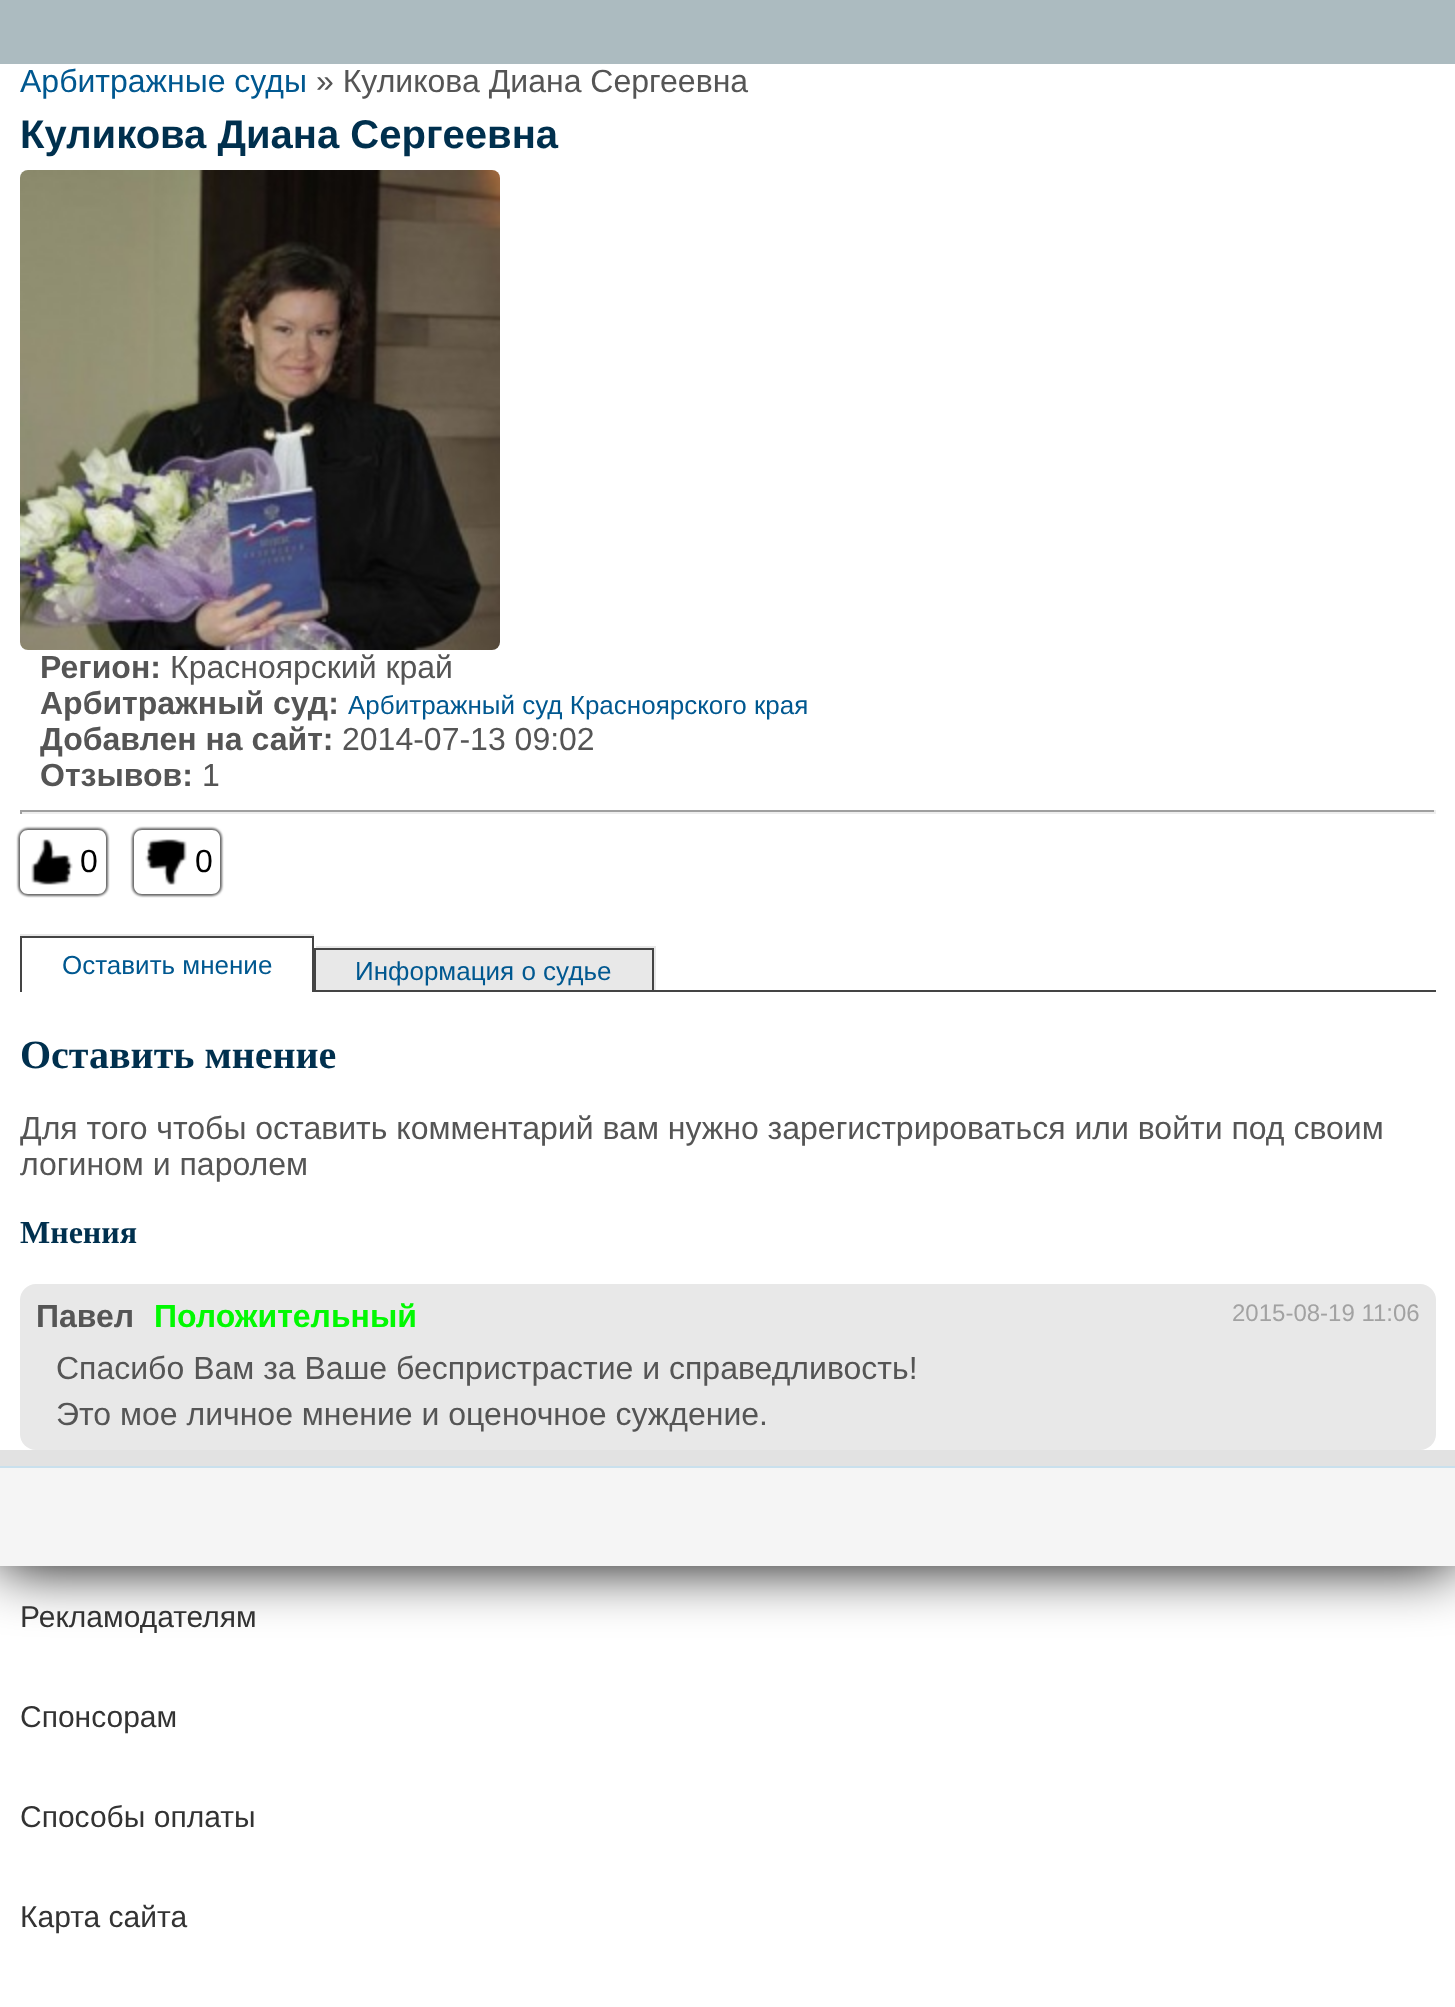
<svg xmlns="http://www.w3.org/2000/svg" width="1455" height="2007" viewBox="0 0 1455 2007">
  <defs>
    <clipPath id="clip1"><path d="M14 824H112V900H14ZM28 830H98C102.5 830 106 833.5 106 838V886C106 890.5 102.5 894 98 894H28C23.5 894 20 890.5 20 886V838C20 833.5 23.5 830 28 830Z" clip-rule="evenodd"/></clipPath>
    <clipPath id="clip2"><path d="M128 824H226V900H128ZM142 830H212C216.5 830 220 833.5 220 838V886C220 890.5 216.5 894 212 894H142C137.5 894 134 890.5 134 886V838C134 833.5 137.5 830 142 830Z" clip-rule="evenodd"/></clipPath>
  </defs>
  <rect width="100%" height="100%" fill="rgb(255,255,255)"/>
  <rect x="0" y="-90" width="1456" height="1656" fill="rgb(0,0,0)" filter="blur(30px)"/>
  <rect x="0" y="0" width="1455" height="64" fill="rgb(172,187,192)"/>
  <rect x="0" y="1450" width="1455" height="16" fill="rgb(226,226,226)"/>
  <rect x="0" y="64" width="1455" height="1386" fill="rgb(255,255,255)"/>
  <text x="20" y="92" font-family="Liberation Sans" font-size="32" fill="rgb(0,88,144)">Арбитражные суды</text>
  <text x="316" y="92" font-family="Liberation Sans" font-size="32" fill="rgb(85,85,85)">» Куликова Диана Сергеевна</text>
  <text x="20" y="148" font-family="Liberation Sans" font-size="40" font-weight="bold" fill="rgb(0,48,78)">Куликова Диана Сергеевна</text>
  <image x="20" y="170" width="480" height="480" href="pic1.png"/>
  <text x="40" y="678" font-family="Liberation Sans" font-size="32" font-weight="bold" fill="rgb(85,85,85)">Регион:</text>
  <text x="170" y="678" font-family="Liberation Sans" font-size="32" fill="rgb(85,85,85)">Красноярский край</text>
  <text x="40" y="714" font-family="Liberation Sans" font-size="32" font-weight="bold" fill="rgb(85,85,85)">Арбитражный суд:</text>
  <text x="348" y="714" font-family="Liberation Sans" font-size="26" fill="rgb(0,88,144)">Арбитражный суд Красноярского края</text>
  <text x="40" y="750" font-family="Liberation Sans" font-size="32" font-weight="bold" fill="rgb(85,85,85)">Добавлен на сайт:</text>
  <text x="342" y="750" font-family="Liberation Sans" font-size="32" fill="rgb(85,85,85)">2014-07-13 09:02</text>
  <text x="40" y="786" font-family="Liberation Sans" font-size="32" font-weight="bold" fill="rgb(85,85,85)">Отзывов:</text>
  <text x="202" y="786" font-family="Liberation Sans" font-size="32" fill="rgb(85,85,85)">1</text>
  <rect x="20" y="810" width="1416" height="2" fill="rgb(159,159,159)"/>
  <rect x="1434" y="810" width="2" height="4" fill="rgb(238,238,238)"/>
  <rect x="20" y="812" width="1416" height="2" fill="rgb(238,238,238)"/>
  <rect x="20" y="810" width="2" height="4" fill="rgb(159,159,159)"/>
  <g clip-path="url(#clip1)">
    <rect x="18" y="828" width="90" height="68" rx="10" fill="rgb(102,102,102)" filter="blur(1px)"/>
  </g>
  <image x="31" y="839" width="42" height="46" href="pic2.png"/>
  <text x="80" y="872" font-family="Liberation Sans" font-size="32" fill="rgb(0,0,0)">0</text>
  <g clip-path="url(#clip2)">
    <rect x="132" y="828" width="90" height="68" rx="10" fill="rgb(102,102,102)" filter="blur(1px)"/>
  </g>
  <image x="145" y="839" width="42" height="46" href="pic3.png"/>
  <text x="195" y="872" font-family="Liberation Sans" font-size="32" fill="rgb(0,0,0)">0</text>
  <rect x="316" y="990" width="1120" height="2" fill="rgb(68,68,68)"/>
  <rect x="20" y="934" width="294" height="2" fill="rgb(232,232,232)"/>
  <rect x="20" y="936" width="294" height="2" fill="rgb(68,68,68)"/>
  <rect x="312" y="936" width="2" height="56" fill="rgb(68,68,68)"/>
  <rect x="20" y="936" width="2" height="56" fill="rgb(68,68,68)"/>
  <text x="62" y="974" font-family="Liberation Sans" font-size="26" fill="rgb(0,88,144)">Оставить мнение</text>
  <rect x="316" y="946" width="340" height="44" fill="rgb(232,232,232)"/>
  <rect x="314" y="948" width="340" height="2" fill="rgb(68,68,68)"/>
  <rect x="652" y="948" width="2" height="44" fill="rgb(68,68,68)"/>
  <rect x="314" y="948" width="2" height="44" fill="rgb(68,68,68)"/>
  <text x="355" y="980" font-family="Liberation Sans" font-size="26" fill="rgb(0,88,144)">Информация о судье</text>
  <text x="20" y="1068" font-family="Liberation Serif" font-size="40" font-weight="bold" fill="rgb(0,48,78)">Оставить мнение</text>
  <g font-family="Liberation Sans" font-size="32" fill="rgb(85,85,85)">
    <text>
      <tspan x="20" y="1139">Для того чтобы оставить комментарий вам нужно зарегистрироваться или войти под своим</tspan>
      <tspan x="20" y="1175">логином и паролем</tspan>
    </text>
  </g>
  <text x="20" y="1243" font-family="Liberation Serif" font-size="32" font-weight="bold" fill="rgb(0,48,78)">Мнения</text>
  <rect x="20" y="1284" width="1416" height="166" rx="16" fill="rgb(232,232,232)"/>
  <text x="36" y="1327" font-family="Liberation Sans" font-size="32" font-weight="bold" fill="rgb(85,85,85)">Павел</text>
  <text x="154" y="1327" font-family="Liberation Sans" font-size="32" font-weight="bold" fill="rgb(1,249,1)">Положительный</text>
  <text x="1232" y="1321" font-family="Liberation Sans" font-size="24" fill="rgb(162,162,162)">2015-08-19 11:06</text>
  <g font-family="Liberation Sans" font-size="32" fill="rgb(85,85,85)">
    <text>
      <tspan x="56" y="1379">Спасибо Вам за Ваше беспристрастие и справедливость!</tspan>
      <tspan x="56" y="1425">Это мое личное мнение и оценочное суждение.</tspan>
    </text>
  </g>
  <rect x="0" y="1468" width="1455" height="98" fill="rgb(245,245,245)"/>
  <rect x="0" y="1466" width="1455" height="2" fill="rgb(201,224,237)"/>
  <g font-family="Liberation Sans" font-size="30" fill="rgb(51,51,51)">
    <text x="20" y="1627">Рекламодателям</text>
    <text x="20" y="1727">Спонсорам</text>
    <text x="20" y="1827">Способы оплаты</text>
    <text x="20" y="1927">Карта сайта</text>
  </g>
</svg>
